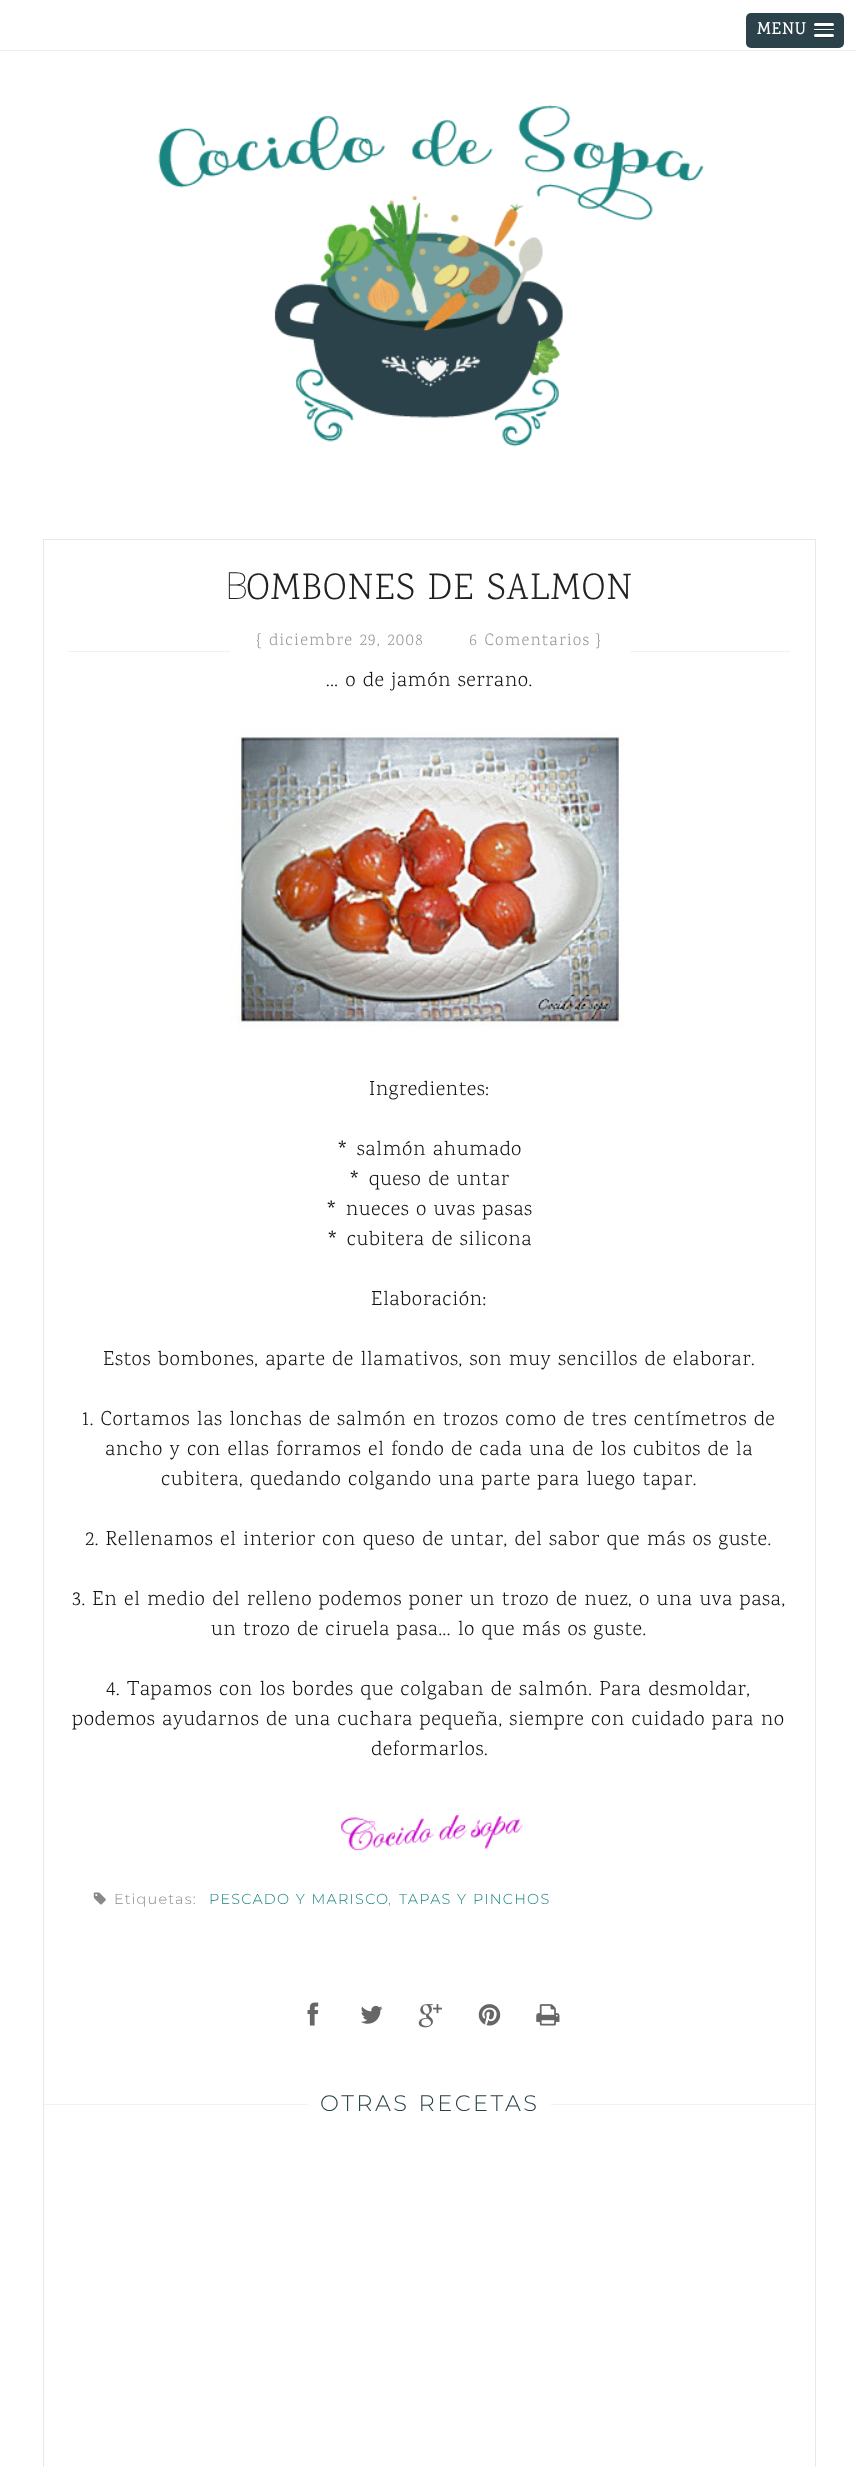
<svg xmlns="http://www.w3.org/2000/svg" width="856" height="2467" viewBox="0 0 856 2467">
  <rect width="100%" height="100%" fill="rgb(255,255,255)"/>
  <rect x="0" y="50" width="856" height="1" fill="rgb(240,240,240)"/>
  <rect x="746" y="13" width="98" height="35" rx="5" fill="rgb(43,66,74)"/>
  <text x="757" y="34" font-family="Karma" font-size="16.9" font-weight="bold" letter-spacing="1.25" fill="rgb(255,255,255)">MENU</text>
  <path d="M814 24.5C812.5 27.5 817.5 27 818.5 27H829.5C830.5 27 833.5 27.5 834 26L833.5 24.5L832.5 25C831 25 815 25.5 814 24.5Z" fill="rgb(32,50,56)"/>
  <rect x="814" y="23" width="20" height="3" rx="1.5" fill="rgb(255,255,255)"/>
  <rect x="814" y="30" width="20" height="1" rx="0.5" fill="rgb(32,50,56)"/>
  <rect x="814" y="29" width="20" height="1" rx="0.5" fill="rgb(255,255,255)"/>
  <path d="M814 36C813 38.5 817.5 38 818.5 38H824C824.5 38 837 39.5 833.5 35.5L833 36C831.5 36.5 814.5 36.5 814 36Z" fill="rgb(32,50,56)"/>
  <rect x="814" y="34" width="20" height="3" rx="1.5" fill="rgb(255,255,255)"/>
  <image x="158" y="105" width="546" height="342" href="pic1.png"/>
  <rect x="43.5" y="539.5" width="772" height="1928" fill="none" stroke="rgb(232,232,232)"/>
  <text x="225" y="599" font-family="Noto Sans" font-size="37.5" font-weight="100" letter-spacing="1.25" fill="rgb(34,34,34)">B</text>
  <text x="246" y="599" word-spacing="0.6" font-family="Karma" font-size="37.5" font-weight="300" letter-spacing="1.25" fill="rgb(34,34,34)">OMBONES DE SALMON</text>
  <rect x="69" y="651" width="721" height="1" fill="rgb(241,241,239)"/>
  <rect x="230" y="651" width="400" height="1" fill="rgb(255,255,255)"/>
  <g font-family="Karma" font-size="16.9" font-weight="300" letter-spacing="1.25" fill="rgb(153,153,153)">
    <text x="256" y="645">{</text>
    <text x="269" y="645" word-spacing="0.6">diciembre 29, 2008</text>
    <text x="469" y="645" word-spacing="0.6">6 Comentarios</text>
    <text x="596" y="645">}</text>
  </g>
  <text x="326" y="686" word-spacing="0.6" font-family="Karma" font-size="20.6" font-weight="300" letter-spacing="0.62" fill="rgb(17,17,17)">... o de jamón serrano.</text>
  <image x="230" y="730" width="394" height="299" href="pic2.png"/>
  <g font-family="Karma" font-size="20.6" font-weight="300" letter-spacing="0.62" fill="rgb(17,17,17)">
    <text x="369" y="1095">Ingredientes:</text>
    <text x="337" y="1155" word-spacing="0.6">* salmón ahumado</text>
    <text x="349" y="1185" word-spacing="0.6">* queso de untar</text>
    <text x="326" y="1215" word-spacing="0.6">* nueces o uvas pasas</text>
    <text x="327" y="1245" word-spacing="0.6">* cubitera de silicona</text>
    <text x="371" y="1305">Elaboración:</text>
    <text x="103" y="1365" word-spacing="0.6">Estos bombones, aparte de llamativos, son muy sencillos de elaborar.</text>
    <text x="82" y="1425" word-spacing="0.6">1. Cortamos las lonchas de salmón en trozos como de tres centímetros de</text>
    <text x="105" y="1455" word-spacing="0.6">ancho y con ellas forramos el fondo de cada una de los cubitos de la</text>
    <text x="161" y="1485" word-spacing="0.6">cubitera, quedando colgando una parte para luego tapar.</text>
    <text x="85" y="1545" word-spacing="0.6">2. Rellenamos el interior con queso de untar, del sabor que más os guste.</text>
    <text x="72" y="1605" word-spacing="0.6">3. En el medio del relleno podemos poner un trozo de nuez, o una uva pasa,</text>
    <text x="211" y="1635" word-spacing="0.6">un trozo de ciruela pasa... lo que más os guste.</text>
    <text x="106" y="1695" word-spacing="0.6">4. Tapamos con los bordes que colgaban de salmón. Para desmoldar,</text>
    <text x="72" y="1725" word-spacing="0.6">podemos ayudarnos de una cuchara pequeña, siempre con cuidado para no</text>
    <text x="371" y="1755">deformarlos.</text>
  </g>
  <image x="341" y="1814" width="182" height="37" href="pic3.png"/>
  <image x="93" y="1892" width="13" height="13" href="pic4.png"/>
  <text x="114" y="1904" font-family="Montserrat" font-size="14.4" font-weight="100" letter-spacing="1.25" fill="rgb(136,136,136)">Etiquetas:</text>
  <text x="209" y="1904" word-spacing="0.6" font-family="Montserrat" font-size="14.4" font-weight="100" letter-spacing="1.25" fill="rgb(20,130,127)">PESCADO Y MARISCO</text>
  <text x="388" y="1904" font-family="Montserrat" font-size="14.4" font-weight="100" letter-spacing="1.25" fill="rgb(136,136,136)">,</text>
  <text x="399" y="1904" word-spacing="0.6" font-family="Montserrat" font-size="14.4" font-weight="100" letter-spacing="1.25" fill="rgb(20,130,127)">TAPAS Y PINCHOS</text>
  <image x="307" y="2002" width="12" height="24" href="pic5.png"/>
  <image x="360" y="2005" width="23" height="19" href="pic6.png"/>
  <image x="418" y="2004" width="24" height="24" href="pic7.png"/>
  <image x="478" y="2004" width="23" height="22" href="pic8.png"/>
  <image x="536" y="2004" width="24" height="22" href="pic9.png"/>
  <rect x="44" y="2104" width="771" height="1" fill="rgb(241,241,239)"/>
  <rect x="308" y="2104" width="243" height="1" fill="rgb(255,255,255)"/>
  <text x="320" y="2111" word-spacing="0.6" font-family="Montserrat" font-size="22.5" font-weight="100" letter-spacing="2.5" fill="rgb(43,66,74)">OTRAS RECETAS</text>
</svg>
